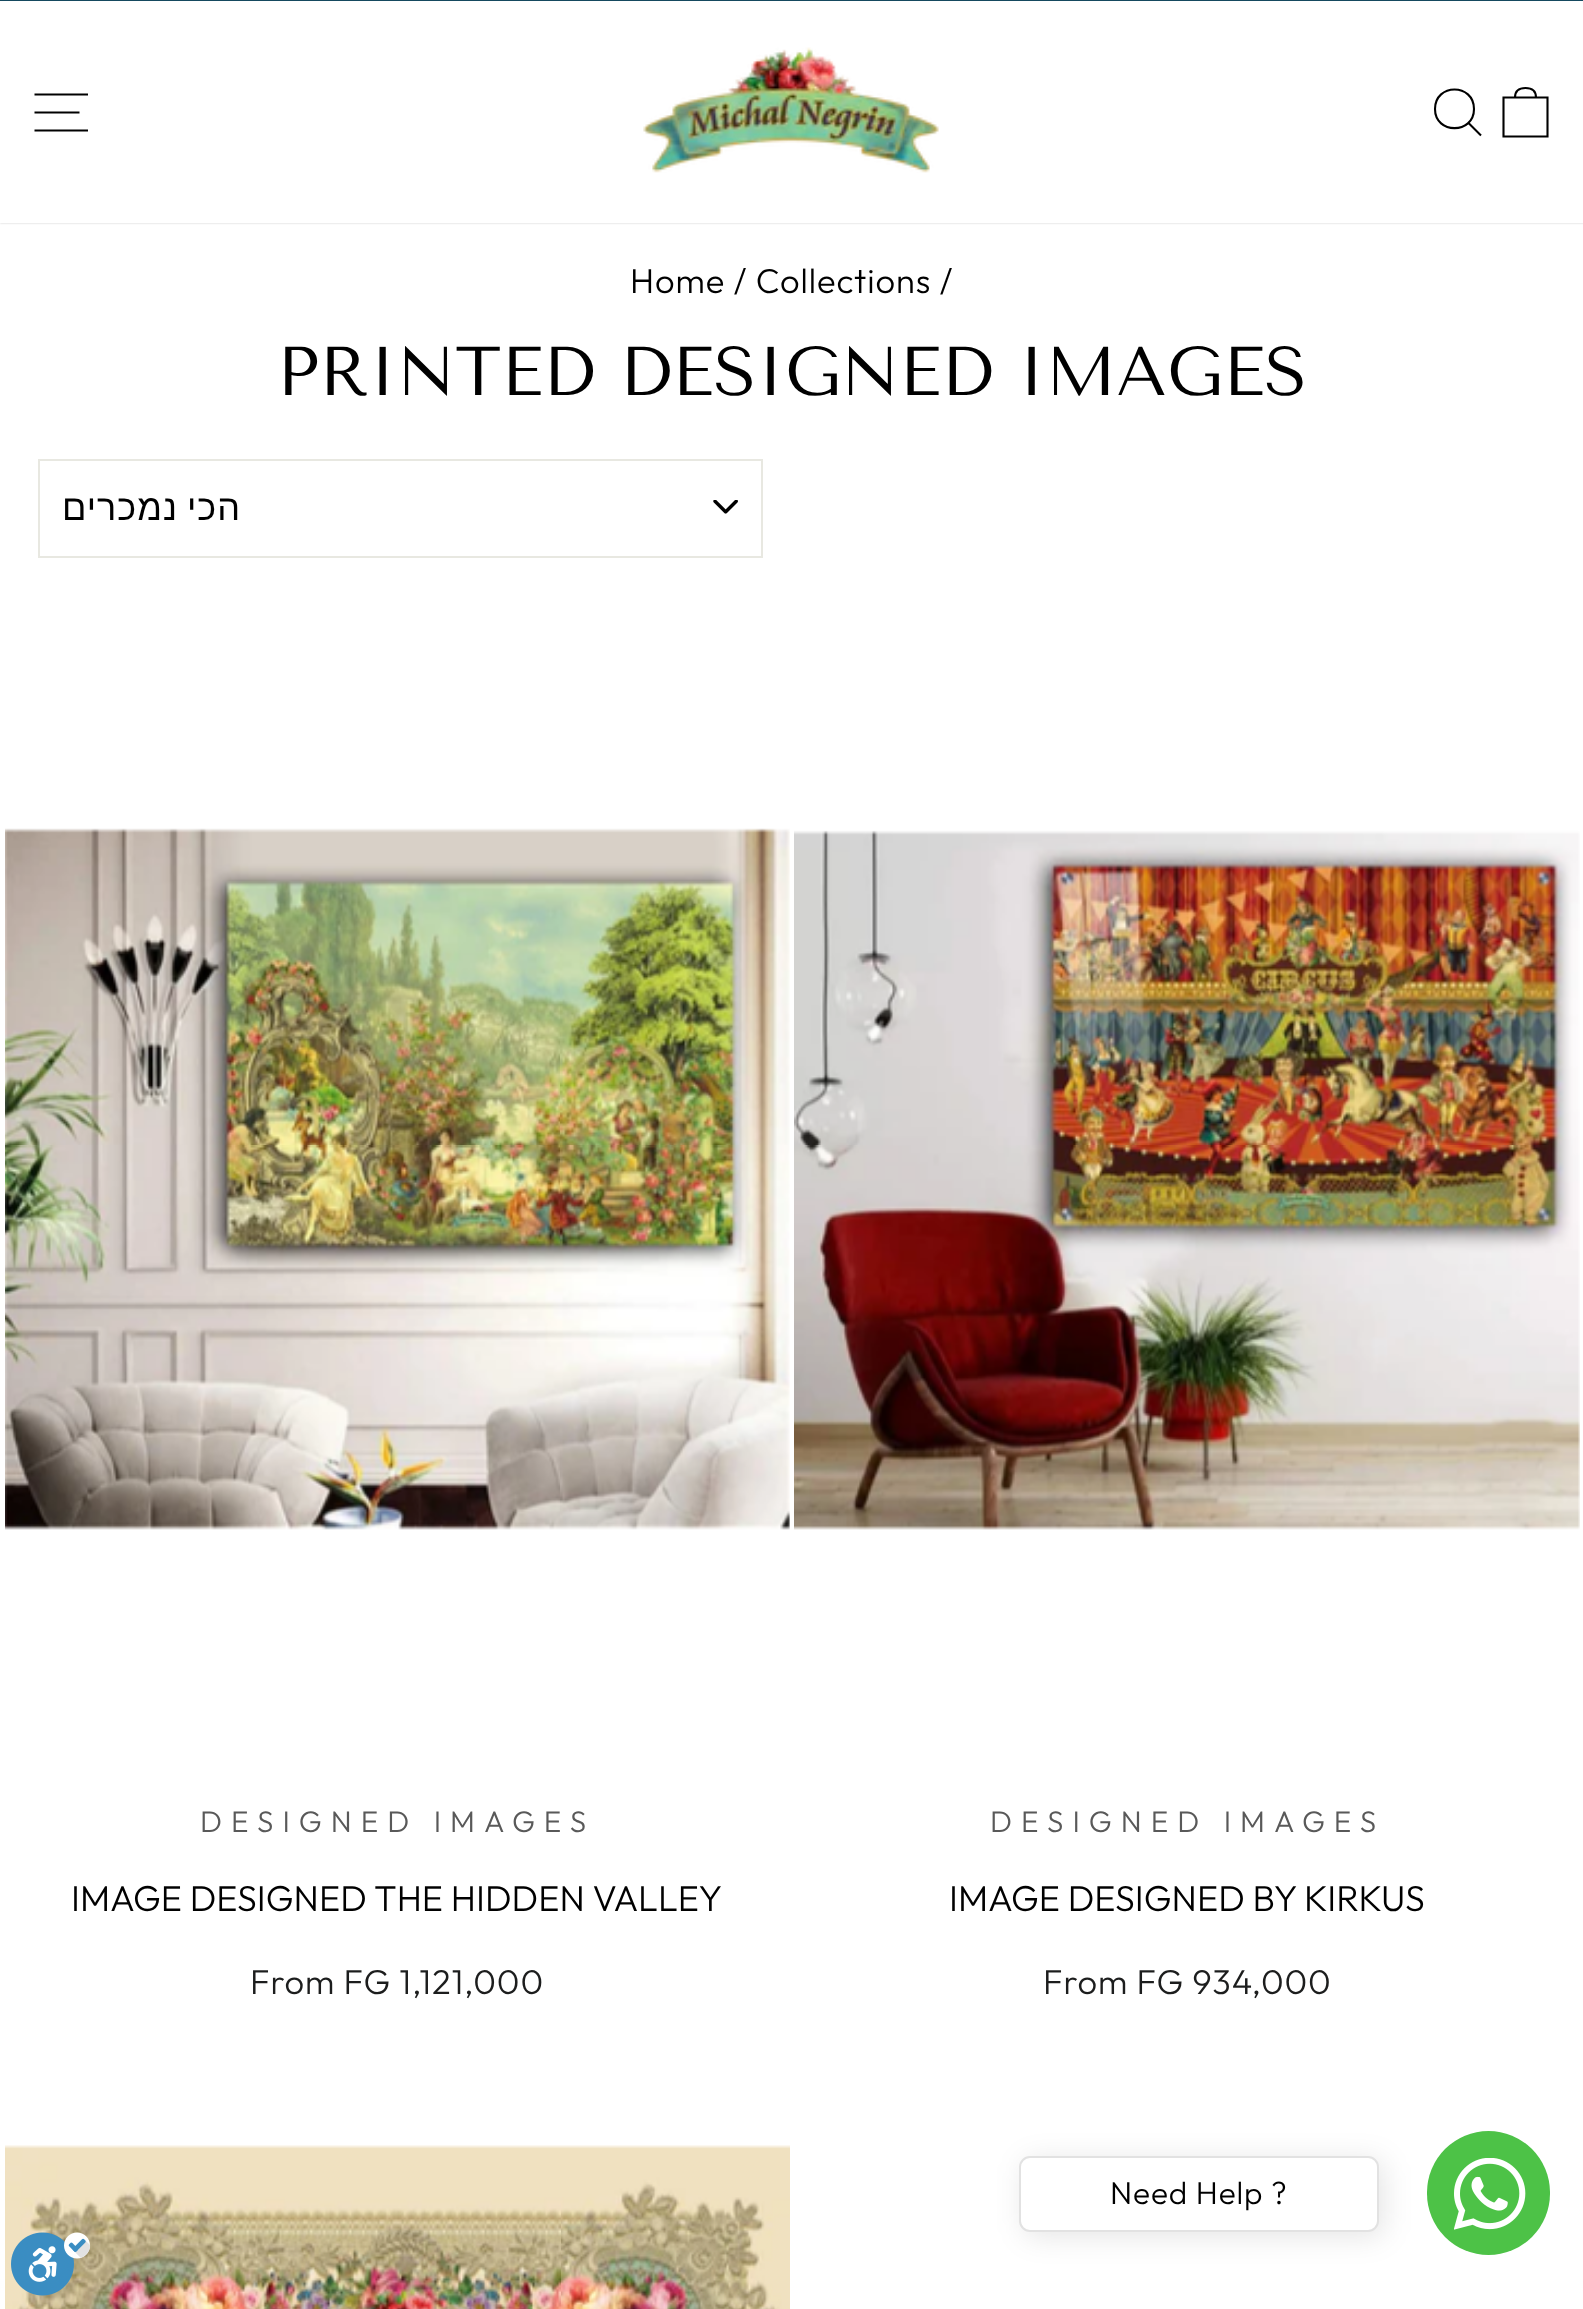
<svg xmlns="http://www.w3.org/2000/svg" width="1583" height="2309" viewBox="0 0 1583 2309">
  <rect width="100%" height="100%" fill="rgb(255,255,255)"/>
  <rect x="0" y="0" width="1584" height="223" fill="rgba(0,0,0,0.2)" filter="blur(1px)"/>
  <rect x="0" y="0" width="1583" height="1" fill="rgb(21,73,95)"/>
  <image x="5" y="2145" width="785" height="164" href="pic6.png"/>
  <image x="11" y="2232" width="80" height="64" href="pic1.png"/>
  <rect x="0" y="1" width="1583" height="222" fill="rgb(255,255,255)"/>
  <path d="M34.5 94.5H88M34.5 112.5H79.5M34.5 130.5H88" fill="none" stroke="rgb(0,0,0)" stroke-width="2.1"/>
  <image x="643" y="47" width="296" height="126" href="pic2.png"/>
  <path d="M1474 109C1474 134.5 1435 134.5 1435 109C1435 83 1474 83 1474 109ZM1481 135.5L1468.5 123" fill="none" stroke="rgb(0,0,0)" stroke-width="2.1"/>
  <path d="M1503.5 97.5H1547.5V136.5H1503.5ZM1515 97.5C1515 90 1520 88 1525.5 88C1531 88 1536 90 1536 97.5" fill="none" stroke="rgb(0,0,0)" stroke-width="2.1"/>
  <text x="630" y="293" font-family="Outfit" font-size="34.5" font-weight="300" letter-spacing="0.9" fill="rgb(0,0,0)">Home / Collections /</text>
  <text x="277" y="395" font-family="Tenor Sans" font-size="68.8" fill="rgb(0,0,0)">PRINTED DESIGNED IMAGES</text>
  <image x="713" y="500" width="25" height="14" href="pic3.png"/>
  <rect x="39" y="460" width="723" height="97" fill="none" stroke="rgb(232,232,225)" stroke-width="2"/>
  <text x="241" y="520" word-spacing="-2" font-family="Liberation Sans" font-size="36" letter-spacing="1" direction="rtl" fill="rgb(0,0,0)">הכי נמכרים</text>
  <image x="5" y="828" width="785" height="702" href="pic4.png"/>
  <text x="200" y="1832" font-family="Outfit" font-size="29.75" font-weight="300" letter-spacing="9" fill="rgb(89,89,89)">DESIGNED IMAGES</text>
  <text x="71" y="1911" font-family="Outfit" font-size="36" font-weight="300" fill="rgb(0,0,0)">IMAGE DESIGNED THE HIDDEN VALLEY</text>
  <text x="250" y="1994" font-family="Outfit" font-size="34.5" font-weight="300" letter-spacing="0.9" fill="rgb(28,29,29)">From FG 1,121,000</text>
  <image x="794" y="830" width="786" height="700" href="pic5.png"/>
  <text x="990" y="1832" font-family="Outfit" font-size="29.75" font-weight="300" letter-spacing="9" fill="rgb(89,89,89)">DESIGNED IMAGES</text>
  <text x="949" y="1911" font-family="Outfit" font-size="36" font-weight="300" fill="rgb(0,0,0)">IMAGE DESIGNED BY KIRKUS</text>
  <text x="1043" y="1994" font-family="Outfit" font-size="34.5" font-weight="300" letter-spacing="0.9" fill="rgb(28,29,29)">From FG 934,000</text>
  <rect x="1427" y="2131" width="123" height="124" rx="61.5" fill="rgb(77,194,71)"/>
  <rect x="1024" y="2160" width="360" height="77" rx="11" fill="rgba(0,0,0,0.1)" filter="blur(14.5px)"/>
  <rect x="1020" y="2157" width="358" height="74" rx="10" fill="rgb(255,255,255)" stroke="rgb(226,226,226)" stroke-width="2"/>
  <text x="1110" y="2204" font-family="Outfit" font-size="31.5" font-weight="300" letter-spacing="0.9" fill="rgb(0,0,0)">Need Help ?</text>
  <image x="1454" y="2158" width="72" height="72" href="pic7.png"/>
</svg>
